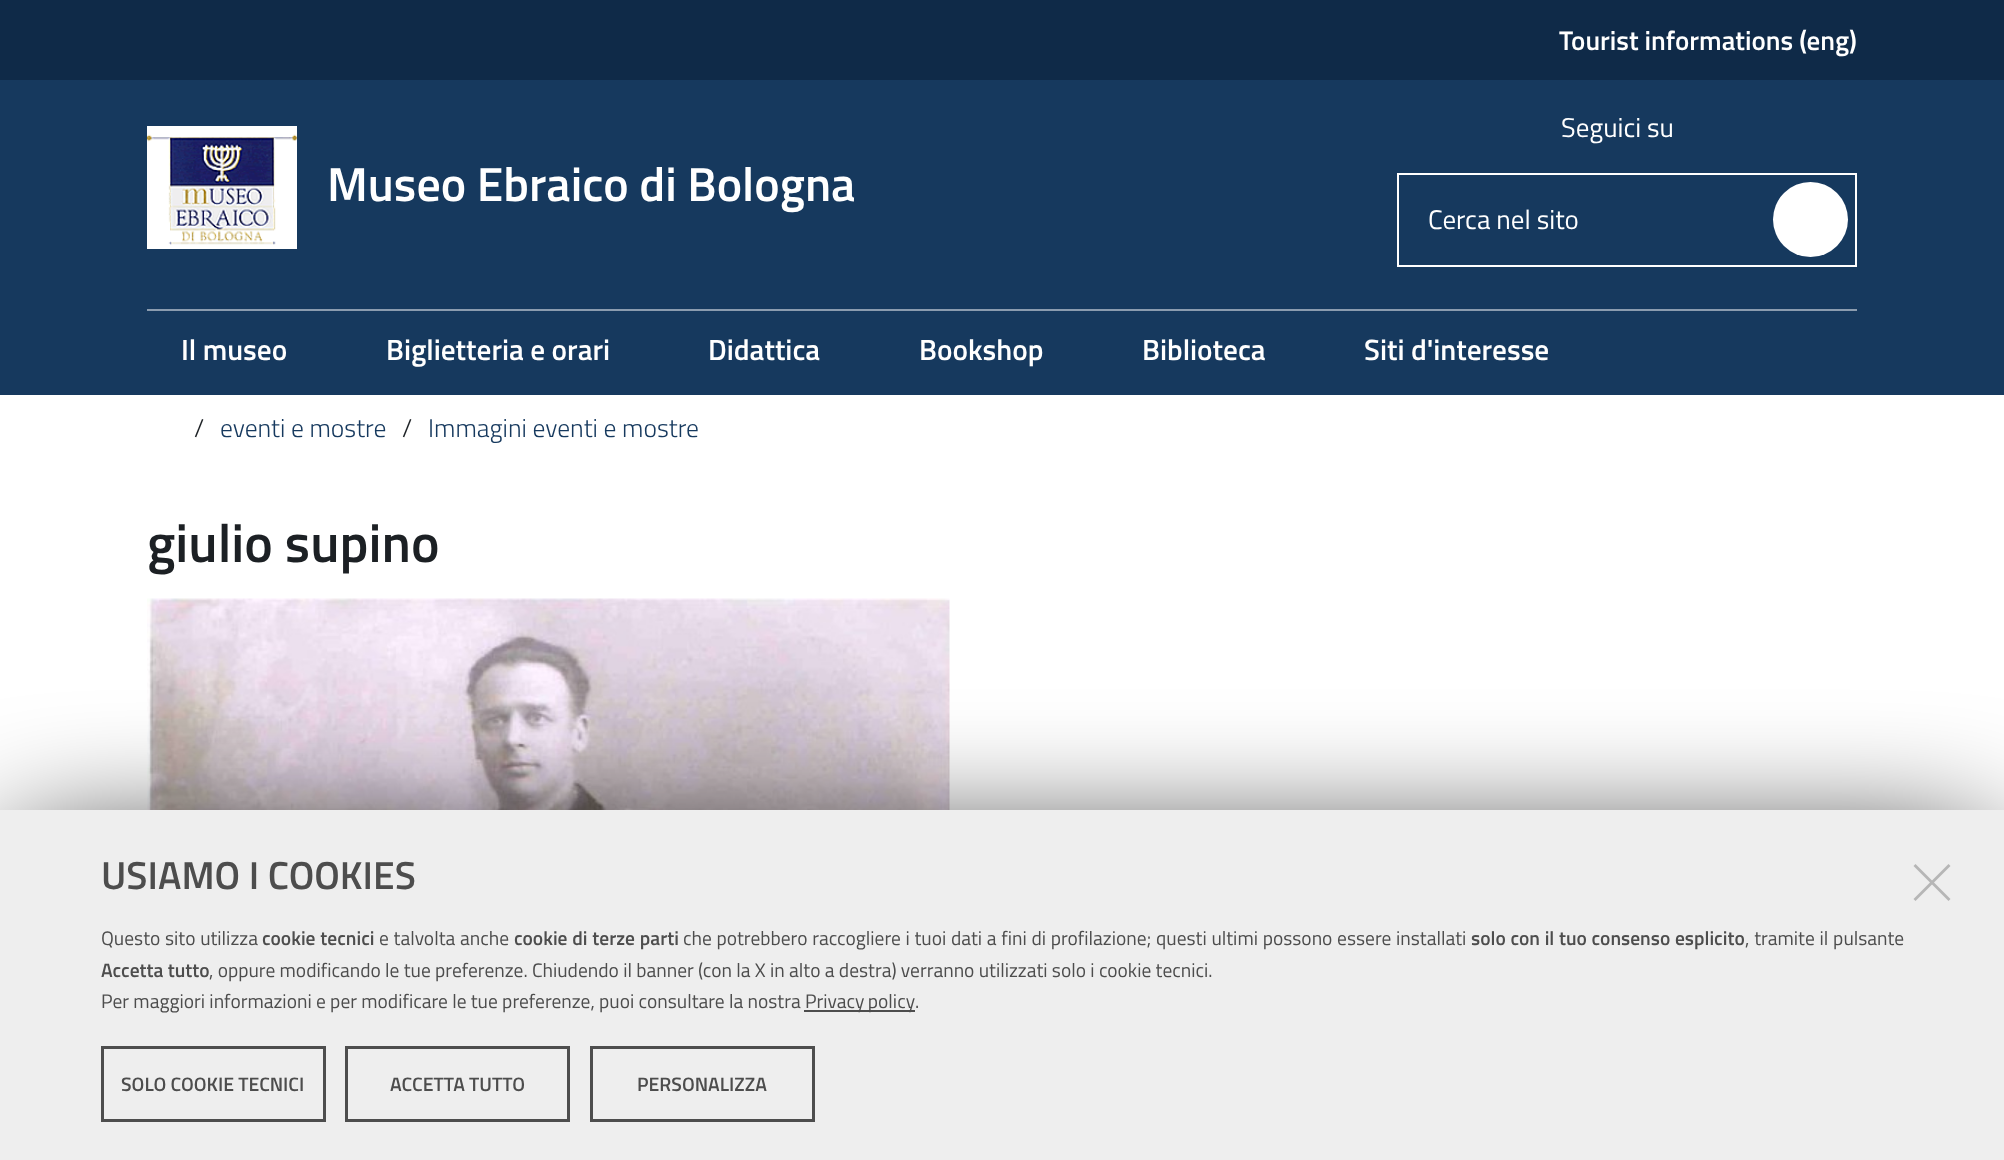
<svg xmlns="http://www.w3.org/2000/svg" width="2004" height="1160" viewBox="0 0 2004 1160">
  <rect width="100%" height="100%" fill="rgb(255,255,255)"/>
  <rect x="0" y="80" width="2004" height="315" fill="rgb(22,57,94)"/>
  <rect x="0" y="0" width="2004" height="80" fill="rgb(15,42,72)"/>
  <text x="1559" y="50" font-family="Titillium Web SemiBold" font-size="27" font-weight="600" fill="rgb(255,255,255)">Tourist informations (eng)</text>
  <image x="147" y="126" width="150" height="123" href="pic1.png"/>
  <text x="327" y="201" font-family="Titillium Web SemiBold" font-size="48" font-weight="600" fill="rgb(255,255,255)">Museo Ebraico di Bologna</text>
  <text x="1561" y="137" font-family="Titillium Web" font-size="27" fill="rgb(255,255,255)">Seguici su</text>
  <rect x="1398" y="174" width="458" height="92" fill="none" stroke="rgb(255,255,255)" stroke-width="2"/>
  <text x="1428" y="229" font-family="Titillium Web" font-size="27" fill="rgb(255,255,255)">Cerca nel sito</text>
  <circle cx="1810.5" cy="219.5" r="37.5" fill="rgb(255,255,255)"/>
  <rect x="147" y="309" width="1710" height="2" fill="rgb(139,156,175)"/>
  <g font-family="Titillium Web SemiBold" font-size="29.25" font-weight="600" fill="rgb(255,255,255)">
    <text x="181" y="360">Il museo</text>
    <text x="386" y="360">Biglietteria e orari</text>
    <text x="708" y="360">Didattica</text>
    <text x="919" y="360">Bookshop</text>
    <text x="1142" y="360">Biblioteca</text>
    <text x="1364" y="360">Siti d'interesse</text>
  </g>
  <text x="194" y="437" font-family="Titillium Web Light" font-size="25.6" font-weight="300" fill="rgb(28,32,36)">/</text>
  <text x="220" y="437" font-family="Titillium Web Light" font-size="25.6" font-weight="300" fill="rgb(22,57,94)">eventi e mostre</text>
  <text x="402" y="437" font-family="Titillium Web Light" font-size="25.6" font-weight="300" fill="rgb(28,32,36)">/</text>
  <text x="428" y="437" font-family="Titillium Web Light" font-size="25.6" font-weight="300" fill="rgb(22,57,94)">Immagini eventi e mostre</text>
  <text x="147" y="562" font-family="Titillium Web SemiBold" font-size="54" font-weight="600" fill="rgb(28,32,36)">giulio supino</text>
  <image x="147" y="598" width="803" height="212" href="pic2.png"/>
  <rect x="14" y="851" width="1977" height="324" fill="rgb(0,0,0)" filter="blur(67.5px)"/>
  <rect x="0" y="810" width="2004" height="350" fill="rgb(238,238,238)"/>
  <text x="101" y="889" font-family="Titillium Web SemiBold" font-size="39" font-weight="600" fill="rgb(77,77,77)">USIAMO I COOKIES</text>
  <text x="101" y="945" word-spacing="0.4" font-family="Titillium Web" font-size="19.5" fill="rgb(77,77,77)">Questo sito utilizza</text>
  <text x="262" y="945" word-spacing="0.5" font-family="Titillium Web SemiBold" font-size="19.5" font-weight="600" fill="rgb(77,77,77)">cookie tecnici</text>
  <text x="379" y="945" word-spacing="0.4" font-family="Titillium Web" font-size="19.5" fill="rgb(77,77,77)">e talvolta anche</text>
  <text x="514" y="945" word-spacing="0.5" font-family="Titillium Web SemiBold" font-size="19.5" font-weight="600" fill="rgb(77,77,77)">cookie di terze parti</text>
  <text x="683" y="945" word-spacing="0.4" font-family="Titillium Web" font-size="19.5" fill="rgb(77,77,77)">che potrebbero raccogliere i tuoi dati a fini di profilazione; questi ultimi possono essere installati</text>
  <text x="1471" y="945" word-spacing="0.4" font-family="Titillium Web SemiBold" font-size="19.5" font-weight="600" fill="rgb(77,77,77)">solo con il tuo consenso esplicito</text>
  <text x="1745" y="945" word-spacing="0.5" font-family="Titillium Web" font-size="19.5" fill="rgb(77,77,77)">, tramite il pulsante</text>
  <text x="101" y="977" font-family="Titillium Web SemiBold" font-size="19.5" font-weight="600" fill="rgb(77,77,77)">Accetta tutto</text>
  <g font-family="Titillium Web" font-size="19.5" fill="rgb(77,77,77)">
    <text x="209" y="977">, oppure modificando le tue preferenze. Chiudendo il banner (con la X in alto a destra) verranno utilizzati solo i cookie tecnici.</text>
    <text x="101" y="1008">Per maggiori informazioni e per modificare le tue preferenze, puoi consultare la nostra</text>
  </g>
  <rect x="804" y="1010" width="111" height="2" fill="rgb(77,77,77)"/>
  <g font-family="Titillium Web" font-size="19.5" fill="rgb(77,77,77)">
    <text x="805" y="1008" word-spacing="-1">Privacy policy</text>
    <text x="915" y="1008">.</text>
  </g>
  <path d="M1948.5 864L1950.5 866L1915.5 901L1913.5 899Z" fill="rgb(182,182,182)"/>
  <path d="M1913.5 866L1915.5 864L1950.5 899L1948.5 901Z" fill="rgb(182,182,182)"/>
  <rect x="102.5" y="1047.5" width="222" height="73" fill="none" stroke="rgb(77,77,77)" stroke-width="3"/>
  <text x="121" y="1091" font-family="Titillium Web SemiBold" font-size="19.5" font-weight="600" fill="rgb(77,77,77)">SOLO COOKIE TECNICI</text>
  <rect x="346.5" y="1047.5" width="222" height="73" fill="none" stroke="rgb(77,77,77)" stroke-width="3"/>
  <text x="390" y="1091" font-family="Titillium Web SemiBold" font-size="19.5" font-weight="600" fill="rgb(77,77,77)">ACCETTA TUTTO</text>
  <rect x="591.5" y="1047.5" width="222" height="73" fill="none" stroke="rgb(77,77,77)" stroke-width="3"/>
  <text x="637" y="1091" font-family="Titillium Web SemiBold" font-size="19.5" font-weight="600" fill="rgb(77,77,77)">PERSONALIZZA</text>
</svg>
